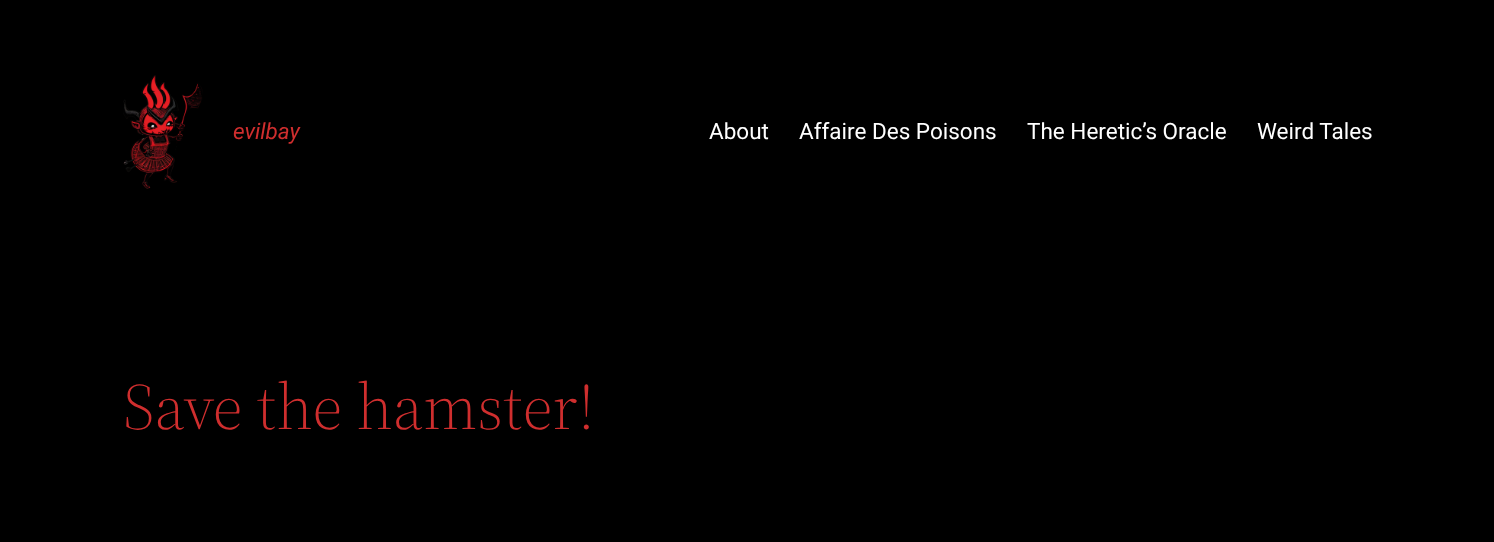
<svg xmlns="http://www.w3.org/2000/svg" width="1494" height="542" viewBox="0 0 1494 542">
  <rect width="100%" height="100%" fill="rgb(0,0,0)"/>
  <image x="123" y="75" width="80" height="114" href="pic1.png"/>
  <text x="233" y="139" font-family="Roboto" font-size="22.5" font-style="italic" fill="rgb(207,46,46)">evilbay</text>
  <g font-family="Roboto" font-size="22.5" fill="rgb(255,255,255)">
    <text x="709" y="139">About</text>
    <text x="799" y="139">Affaire Des Poisons</text>
    <text x="1027" y="139">The Heretic’s Oracle</text>
    <text x="1257" y="139">Weird Tales</text>
  </g>
  <text x="123" y="429" font-family="'Source Serif 4'" font-size="65" font-weight="300" fill="rgb(207,46,46)">Save the hamster!</text>
</svg>
